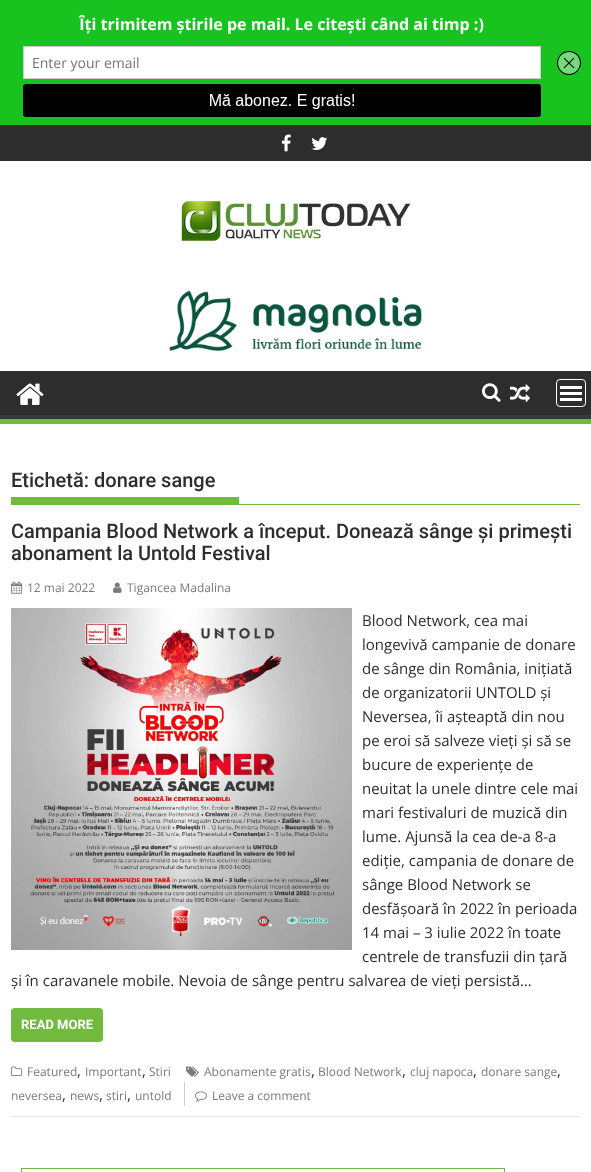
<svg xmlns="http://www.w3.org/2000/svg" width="591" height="1172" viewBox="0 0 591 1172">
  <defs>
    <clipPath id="clip1"><rect x="0" y="371" width="591" height="48"/></clipPath>
  </defs>
  <rect width="100%" height="100%" fill="rgb(255,255,255)"/>
  <image x="0" y="0" width="591" height="125" href="pic1.png"/>
  <rect x="0" y="125" width="591" height="36" fill="rgb(45,45,45)"/>
  <image x="281" y="134" width="10" height="18" href="pic2.png"/>
  <image x="311" y="137" width="17" height="13" href="pic3.png"/>
  <image x="181" y="199" width="230" height="44" href="pic4.png"/>
  <image x="169" y="290" width="253" height="63" href="pic5.png"/>
  <rect x="0" y="371" width="591" height="44" fill="rgb(45,45,45)"/>
  <g clip-path="url(#clip1)">
    <path d="M-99 272H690V518H-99ZM-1 365H590C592 365 591 373 591 374V414L590 415H-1L-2 414V366Z" fill="rgb(57,57,57)" fill-rule="evenodd"/>
  </g>
  <rect x="0" y="419" width="591" height="5" fill="rgb(113,186,61)"/>
  <image x="16" y="383" width="28" height="22" href="pic6.png"/>
  <image x="482" y="383" width="19" height="19" href="pic7.png"/>
  <image x="510" y="384" width="20" height="18" href="pic8.png"/>
  <rect x="556.5" y="379.5" width="29" height="27" rx="3.5" fill="none" stroke="rgb(255,255,255)"/>
  <rect x="560" y="398" width="22" height="3" fill="rgb(255,255,255)"/>
  <rect x="560" y="392" width="22" height="3" fill="rgb(255,255,255)"/>
  <rect x="560" y="386" width="22" height="3" fill="rgb(255,255,255)"/>
  <rect x="11" y="504" width="569" height="1" fill="rgb(113,186,61)"/>
  <text x="11" y="487" font-family="Roboto" font-size="20" font-weight="500" fill="rgb(45,45,45)">Etichetă: donare sange</text>
  <rect x="11" y="497" width="228" height="7" fill="rgb(113,186,61)"/>
  <rect x="11" y="1116" width="569" height="1" fill="rgb(229,229,229)"/>
  <g font-family="Roboto" font-size="20" font-weight="500" fill="rgb(45,45,45)">
    <text>
      <tspan x="11" y="538">Campania Blood Network a început. Donează sânge și primești</tspan>
      <tspan x="11" y="560">abonament la Untold Festival</tspan>
    </text>
  </g>
  <image x="11" y="581" width="12" height="13" href="pic9.png"/>
  <text x="27" y="592" font-family="Open Sans" font-size="12" fill="rgb(122,122,122)">12 mai 2022</text>
  <image x="113" y="582" width="9" height="11" href="pic10.png"/>
  <text x="127" y="592" font-family="Open Sans" font-size="12" fill="rgb(122,122,122)">Tigancea Madalina</text>
  <image x="11" y="608" width="341" height="342" href="pic11.png"/>
  <g font-family="Open Sans" font-size="15" fill="rgb(45,45,45)">
    <text>
      <tspan x="362" y="626">Blood Network, cea mai</tspan>
      <tspan x="362" y="650">longevivă campanie de donare</tspan>
      <tspan x="362" y="674">de sânge din România, inițiată</tspan>
      <tspan x="362" y="698">de organizatorii UNTOLD și</tspan>
      <tspan x="362" y="722">Neversea, îi așteaptă din nou</tspan>
      <tspan x="362" y="746">pe eroi să salveze vieți și să se</tspan>
      <tspan x="362" y="770">bucure de experiențe de</tspan>
      <tspan x="362" y="794">neuitat la unele dintre cele mai</tspan>
      <tspan x="362" y="818">mari festivaluri de muzică din</tspan>
      <tspan x="362" y="842">lume. Ajunsă la cea de-a 8-a</tspan>
      <tspan x="362" y="866">ediție, campania de donare de</tspan>
      <tspan x="362" y="890">sânge Blood Network se</tspan>
      <tspan x="362" y="914">desfășoară în 2022 în perioada</tspan>
      <tspan x="362" y="938">14 mai – 3 iulie 2022 în toate</tspan>
      <tspan x="362" y="962">centrele de transfuzii din țară</tspan>
    </text>
    <text x="11" y="986">și în caravanele mobile. Nevoia de sânge pentru salvarea de vieți persistă…</text>
  </g>
  <rect x="11" y="1008" width="92" height="34" rx="4" fill="rgb(113,186,61)"/>
  <text x="21" y="1029" font-family="Roboto" font-size="13" font-weight="bold" fill="rgb(255,255,255)">READ MORE</text>
  <image x="186" y="1066" width="13" height="11" href="pic12.png"/>
  <text x="204" y="1076" font-family="Open Sans" font-size="12" fill="rgb(122,122,122)">Abonamente gratis</text>
  <text x="311" y="1076" font-family="Open Sans" font-size="15" fill="rgb(45,45,45)">,</text>
  <text x="318" y="1076" font-family="Open Sans" font-size="12" fill="rgb(122,122,122)">Blood Network</text>
  <text x="402" y="1076" font-family="Open Sans" font-size="15" fill="rgb(45,45,45)">,</text>
  <text x="410" y="1076" font-family="Open Sans" font-size="12" fill="rgb(122,122,122)">cluj napoca</text>
  <text x="473" y="1076" font-family="Open Sans" font-size="15" fill="rgb(45,45,45)">,</text>
  <text x="481" y="1076" font-family="Open Sans" font-size="12" fill="rgb(122,122,122)">donare sange</text>
  <text x="557" y="1076" font-family="Open Sans" font-size="15" fill="rgb(45,45,45)">,</text>
  <text x="11" y="1100" font-family="Open Sans" font-size="12" fill="rgb(122,122,122)">neversea</text>
  <text x="62" y="1100" font-family="Open Sans" font-size="15" fill="rgb(45,45,45)">,</text>
  <text x="70" y="1100" font-family="Open Sans" font-size="12" fill="rgb(122,122,122)">news</text>
  <text x="99" y="1100" font-family="Open Sans" font-size="15" fill="rgb(45,45,45)">,</text>
  <text x="106" y="1100" font-family="Open Sans" font-size="12" fill="rgb(122,122,122)">stiri</text>
  <text x="127" y="1100" font-family="Open Sans" font-size="15" fill="rgb(45,45,45)">,</text>
  <text x="135" y="1100" font-family="Open Sans" font-size="12" fill="rgb(122,122,122)">untold</text>
  <image x="11" y="1066" width="12" height="10" href="pic13.png"/>
  <text x="27" y="1076" font-family="Open Sans" font-size="12" fill="rgb(122,122,122)">Featured</text>
  <text x="77" y="1076" font-family="Open Sans" font-size="15" fill="rgb(45,45,45)">,</text>
  <text x="85" y="1076" font-family="Open Sans" font-size="12" fill="rgb(122,122,122)">Important</text>
  <text x="142" y="1076" font-family="Open Sans" font-size="15" fill="rgb(45,45,45)">,</text>
  <text x="149" y="1076" font-family="Open Sans" font-size="12" fill="rgb(122,122,122)">Stiri</text>
  <rect x="184" y="1082" width="1" height="24" fill="rgb(204,204,204)"/>
  <image x="195" y="1091" width="12" height="11" href="pic14.png"/>
  <text x="212" y="1100" font-family="Open Sans" font-size="12" fill="rgb(122,122,122)">Leave a comment</text>
  <rect x="21.5" y="1168.5" width="483" height="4" fill="none" stroke="rgb(113,186,61)"/>
</svg>
